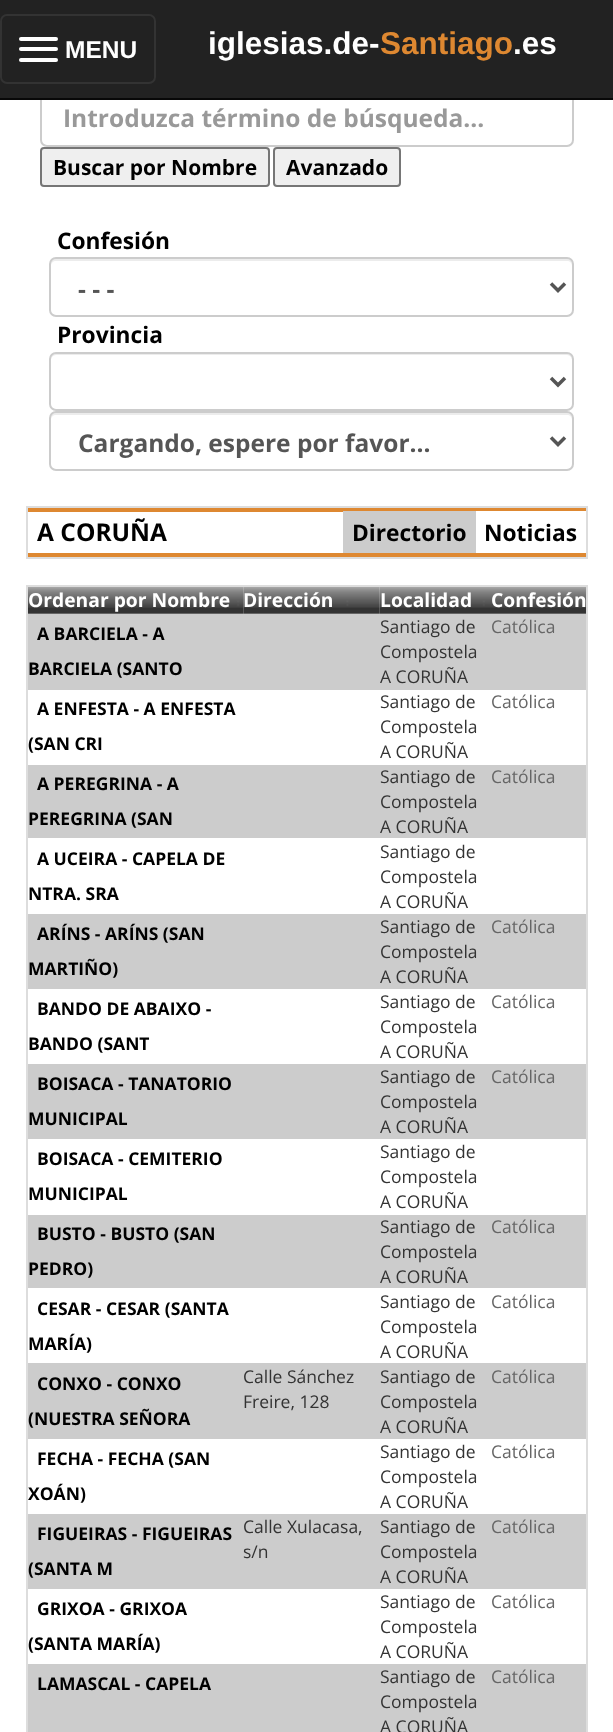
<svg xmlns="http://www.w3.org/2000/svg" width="613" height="1732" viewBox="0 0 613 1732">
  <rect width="100%" height="100%" fill="rgb(255,255,255)"/>
  <rect x="41" y="89" width="532" height="57" rx="6" fill="none" stroke="rgb(204,204,204)" stroke-width="2"/>
  <rect x="0" y="0" width="613" height="98" fill="rgb(34,34,34)"/>
  <rect x="0" y="98" width="613" height="2" fill="rgb(8,8,8)"/>
  <rect x="1" y="15" width="154" height="68" rx="6" fill="none" stroke="rgb(51,51,51)" stroke-width="2"/>
  <rect x="19" y="37" width="39" height="4" rx="2" fill="rgb(255,255,255)"/>
  <rect x="19" y="47" width="39" height="4" rx="2" fill="rgb(255,255,255)"/>
  <rect x="19" y="58" width="39" height="4" rx="2" fill="rgb(255,255,255)"/>
  <text x="65" y="58" font-family="Liberation Sans" font-size="24.5" font-weight="bold" fill="rgb(255,255,255)">MENU</text>
  <text x="208" y="54" font-family="Liberation Sans" font-size="31.5" font-weight="bold" fill="rgb(255,255,255)">iglesias.de-</text>
  <text x="380" y="54" font-family="Liberation Sans" font-size="31.5" font-weight="bold" fill="rgb(222,136,49)">Santiago</text>
  <text x="513" y="54" font-family="Liberation Sans" font-size="31.5" font-weight="bold" fill="rgb(255,255,255)">.es</text>
  <text x="63" y="127" font-family="Open Sans" font-size="24.5" font-weight="bold" fill="rgb(153,153,153)">Introduzca término de búsqueda...</text>
  <rect x="41" y="148" width="228" height="38" rx="3" fill="rgb(239,239,239)" stroke="rgb(118,118,118)" stroke-width="2"/>
  <text x="53" y="175" font-family="Open Sans" font-size="21" font-weight="bold" fill="rgb(0,0,0)">Buscar por Nombre</text>
  <rect x="274" y="148" width="126" height="38" rx="3" fill="rgb(239,239,239)" stroke="rgb(118,118,118)" stroke-width="2"/>
  <text x="286" y="175" font-family="Open Sans" font-size="21" font-weight="bold" fill="rgb(0,0,0)">Avanzado</text>
  <text x="57" y="249" font-family="Open Sans" font-size="22.75" font-weight="bold" fill="rgb(0,0,0)">Confesión</text>
  <path d="M56 261H567C570 261 572 263 572 266V264C572 261 570 259 567 259H56C53 259 51 261 51 264V266C51 263 53 261 56 261Z" fill="rgb(236,236,236)"/>
  <rect x="50" y="258" width="523" height="58" rx="6" fill="none" stroke="rgb(204,204,204)" stroke-width="2"/>
  <path d="M551 283.5L558 290.5L565 283.5" fill="none" stroke="rgb(85,85,85)" stroke-width="3.5"/>
  <text x="78" y="298" font-family="Open Sans" font-size="24.5" font-weight="bold" fill="rgb(85,85,85)">- - -</text>
  <text x="57" y="343" font-family="Open Sans" font-size="22.75" font-weight="bold" fill="rgb(0,0,0)">Provincia</text>
  <path d="M56 355H567C570 355 572 358 572 360V359C572 356 570 354 567 354H56C53 354 51 356 51 359V360C51 358 53 355 56 355Z" fill="rgb(236,236,236)"/>
  <rect x="50" y="353" width="523" height="57" rx="6" fill="none" stroke="rgb(204,204,204)" stroke-width="2"/>
  <path d="M551 378L558 385L565 378" fill="none" stroke="rgb(85,85,85)" stroke-width="3.5"/>
  <path d="M56 415H567C570 415 572 417 572 420V418C572 415 570 413 567 413H56C53 413 51 415 51 418V420C51 417 53 415 56 415Z" fill="rgb(236,236,236)"/>
  <rect x="50" y="412" width="523" height="58" rx="6" fill="none" stroke="rgb(204,204,204)" stroke-width="2"/>
  <path d="M551 437.5L558 444.5L565 437.5" fill="none" stroke="rgb(85,85,85)" stroke-width="3.5"/>
  <text x="78" y="452" font-family="Open Sans" font-size="24.5" font-weight="bold" fill="rgb(85,85,85)">Cargando, espere por favor...</text>
  <rect x="26" y="506" width="562" height="2" fill="rgb(221,221,221)"/>
  <rect x="28" y="508" width="560" height="4" fill="rgb(222,136,49)"/>
  <rect x="28" y="553" width="560" height="4" fill="rgb(222,136,49)"/>
  <rect x="586" y="506" width="2" height="52" fill="rgb(221,221,221)"/>
  <rect x="26" y="557" width="562" height="2" fill="rgb(221,221,221)"/>
  <rect x="26" y="506" width="2" height="52" fill="rgb(221,221,221)"/>
  <text x="37" y="541" font-family="Open Sans" font-size="24.5" font-weight="bold" fill="rgb(0,0,0)">A CORUÑA</text>
  <rect x="343" y="511" width="133" height="42" fill="rgb(204,204,204)"/>
  <text x="352" y="541" font-family="Open Sans" font-size="22.75" font-weight="bold" fill="rgb(0,0,0)">Directorio</text>
  <rect x="476" y="511" width="110" height="1" fill="rgb(255,255,255)"/>
  <text x="484" y="541" font-family="Open Sans" font-size="22.75" font-weight="bold" fill="rgb(0,0,0)">Noticias</text>
  <rect x="26" y="585" width="562" height="2" fill="rgb(221,221,221)"/>
  <rect x="586" y="585" width="2" height="1147" fill="rgb(221,221,221)"/>
  <rect x="26" y="585" width="2" height="1147" fill="rgb(221,221,221)"/>
  <image x="28" y="587" width="216" height="27" href="pic1.png"/>
  <text x="28" y="607" font-family="Open Sans" font-size="19.25" font-weight="bold" fill="rgb(255,255,255)">Ordenar por Nombre</text>
  <image x="243" y="587" width="137" height="27" href="pic2.png"/>
  <text x="243" y="607" font-family="Open Sans" font-size="19.25" font-weight="bold" fill="rgb(255,255,255)">Dirección</text>
  <image x="379" y="587" width="111" height="27" href="pic3.png"/>
  <text x="380" y="607" font-family="Open Sans" font-size="19.25" font-weight="bold" fill="rgb(255,255,255)">Localidad</text>
  <image x="490" y="587" width="96" height="27" href="pic4.png"/>
  <text x="491" y="607" font-family="Open Sans" font-size="19.25" font-weight="bold" fill="rgb(255,255,255)">Confesión</text>
  <rect x="28" y="614" width="558" height="76" fill="rgb(204,204,204)"/>
  <g font-family="Open Sans" font-size="17.5" font-weight="bold" fill="rgb(0,0,0)">
    <text x="37" y="640">A BARCIELA - A</text>
    <text x="28" y="675">BARCIELA (SANTO</text>
  </g>
  <g font-family="Open Sans" font-size="17.5" fill="rgb(51,51,51)">
    <text>
      <tspan x="380" y="633">Santiago de</tspan>
      <tspan x="380" y="658">Compostela</tspan>
      <tspan x="380" y="683">A CORUÑA</tspan>
    </text>
  </g>
  <text x="491" y="633" font-family="Open Sans" font-size="17.5" fill="rgb(102,102,102)">Católica</text>
  <g font-family="Open Sans" font-size="17.5" font-weight="bold" fill="rgb(0,0,0)">
    <text x="37" y="715">A ENFESTA - A ENFESTA</text>
    <text x="28" y="750">(SAN CRI</text>
  </g>
  <g font-family="Open Sans" font-size="17.5" fill="rgb(51,51,51)">
    <text>
      <tspan x="380" y="708">Santiago de</tspan>
      <tspan x="380" y="733">Compostela</tspan>
      <tspan x="380" y="758">A CORUÑA</tspan>
    </text>
  </g>
  <text x="491" y="708" font-family="Open Sans" font-size="17.5" fill="rgb(102,102,102)">Católica</text>
  <rect x="28" y="765" width="558" height="73" fill="rgb(204,204,204)"/>
  <g font-family="Open Sans" font-size="17.5" font-weight="bold" fill="rgb(0,0,0)">
    <text x="37" y="790">A PEREGRINA - A</text>
    <text x="28" y="825">PEREGRINA (SAN</text>
  </g>
  <g font-family="Open Sans" font-size="17.5" fill="rgb(51,51,51)">
    <text>
      <tspan x="380" y="783">Santiago de</tspan>
      <tspan x="380" y="808">Compostela</tspan>
      <tspan x="380" y="833">A CORUÑA</tspan>
    </text>
  </g>
  <text x="491" y="783" font-family="Open Sans" font-size="17.5" fill="rgb(102,102,102)">Católica</text>
  <g font-family="Open Sans" font-size="17.5" font-weight="bold" fill="rgb(0,0,0)">
    <text x="37" y="865">A UCEIRA - CAPELA DE</text>
    <text x="28" y="900">NTRA. SRA</text>
  </g>
  <g font-family="Open Sans" font-size="17.5" fill="rgb(51,51,51)">
    <text>
      <tspan x="380" y="858">Santiago de</tspan>
      <tspan x="380" y="883">Compostela</tspan>
      <tspan x="380" y="908">A CORUÑA</tspan>
    </text>
  </g>
  <rect x="28" y="914" width="558" height="75" fill="rgb(204,204,204)"/>
  <g font-family="Open Sans" font-size="17.5" font-weight="bold" fill="rgb(0,0,0)">
    <text x="37" y="940">ARÍNS - ARÍNS (SAN</text>
    <text x="28" y="975">MARTIÑO)</text>
  </g>
  <g font-family="Open Sans" font-size="17.5" fill="rgb(51,51,51)">
    <text>
      <tspan x="380" y="933">Santiago de</tspan>
      <tspan x="380" y="958">Compostela</tspan>
      <tspan x="380" y="983">A CORUÑA</tspan>
    </text>
  </g>
  <text x="491" y="933" font-family="Open Sans" font-size="17.5" fill="rgb(102,102,102)">Católica</text>
  <g font-family="Open Sans" font-size="17.5" font-weight="bold" fill="rgb(0,0,0)">
    <text x="37" y="1015">BANDO DE ABAIXO -</text>
    <text x="28" y="1050">BANDO (SANT</text>
  </g>
  <g font-family="Open Sans" font-size="17.5" fill="rgb(51,51,51)">
    <text>
      <tspan x="380" y="1008">Santiago de</tspan>
      <tspan x="380" y="1033">Compostela</tspan>
      <tspan x="380" y="1058">A CORUÑA</tspan>
    </text>
  </g>
  <text x="491" y="1008" font-family="Open Sans" font-size="17.5" fill="rgb(102,102,102)">Católica</text>
  <rect x="28" y="1064" width="558" height="75" fill="rgb(204,204,204)"/>
  <g font-family="Open Sans" font-size="17.5" font-weight="bold" fill="rgb(0,0,0)">
    <text x="37" y="1090">BOISACA - TANATORIO</text>
    <text x="28" y="1125">MUNICIPAL</text>
  </g>
  <g font-family="Open Sans" font-size="17.5" fill="rgb(51,51,51)">
    <text>
      <tspan x="380" y="1083">Santiago de</tspan>
      <tspan x="380" y="1108">Compostela</tspan>
      <tspan x="380" y="1133">A CORUÑA</tspan>
    </text>
  </g>
  <text x="491" y="1083" font-family="Open Sans" font-size="17.5" fill="rgb(102,102,102)">Católica</text>
  <g font-family="Open Sans" font-size="17.5" font-weight="bold" fill="rgb(0,0,0)">
    <text x="37" y="1165">BOISACA - CEMITERIO</text>
    <text x="28" y="1200">MUNICIPAL</text>
  </g>
  <g font-family="Open Sans" font-size="17.5" fill="rgb(51,51,51)">
    <text>
      <tspan x="380" y="1158">Santiago de</tspan>
      <tspan x="380" y="1183">Compostela</tspan>
      <tspan x="380" y="1208">A CORUÑA</tspan>
    </text>
  </g>
  <rect x="28" y="1215" width="558" height="73" fill="rgb(204,204,204)"/>
  <g font-family="Open Sans" font-size="17.5" font-weight="bold" fill="rgb(0,0,0)">
    <text x="37" y="1240">BUSTO - BUSTO (SAN</text>
    <text x="28" y="1275">PEDRO)</text>
  </g>
  <g font-family="Open Sans" font-size="17.5" fill="rgb(51,51,51)">
    <text>
      <tspan x="380" y="1233">Santiago de</tspan>
      <tspan x="380" y="1258">Compostela</tspan>
      <tspan x="380" y="1283">A CORUÑA</tspan>
    </text>
  </g>
  <text x="491" y="1233" font-family="Open Sans" font-size="17.5" fill="rgb(102,102,102)">Católica</text>
  <g font-family="Open Sans" font-size="17.5" font-weight="bold" fill="rgb(0,0,0)">
    <text x="37" y="1315">CESAR - CESAR (SANTA</text>
    <text x="28" y="1350">MARÍA)</text>
  </g>
  <g font-family="Open Sans" font-size="17.5" fill="rgb(51,51,51)">
    <text>
      <tspan x="380" y="1308">Santiago de</tspan>
      <tspan x="380" y="1333">Compostela</tspan>
      <tspan x="380" y="1358">A CORUÑA</tspan>
    </text>
  </g>
  <text x="491" y="1308" font-family="Open Sans" font-size="17.5" fill="rgb(102,102,102)">Católica</text>
  <rect x="28" y="1363" width="558" height="76" fill="rgb(204,204,204)"/>
  <g font-family="Open Sans" font-size="17.5" font-weight="bold" fill="rgb(0,0,0)">
    <text x="37" y="1390">CONXO - CONXO</text>
    <text x="28" y="1425">(NUESTRA SEÑORA</text>
  </g>
  <g font-family="Open Sans" font-size="17.5" fill="rgb(51,51,51)">
    <text>
      <tspan x="243" y="1383">Calle Sánchez</tspan>
      <tspan x="243" y="1408">Freire, 128</tspan>
    </text>
    <text>
      <tspan x="380" y="1383">Santiago de</tspan>
      <tspan x="380" y="1408">Compostela</tspan>
      <tspan x="380" y="1433">A CORUÑA</tspan>
    </text>
  </g>
  <text x="491" y="1383" font-family="Open Sans" font-size="17.5" fill="rgb(102,102,102)">Católica</text>
  <g font-family="Open Sans" font-size="17.5" font-weight="bold" fill="rgb(0,0,0)">
    <text x="37" y="1465">FECHA - FECHA (SAN</text>
    <text x="28" y="1500">XOÁN)</text>
  </g>
  <g font-family="Open Sans" font-size="17.5" fill="rgb(51,51,51)">
    <text>
      <tspan x="380" y="1458">Santiago de</tspan>
      <tspan x="380" y="1483">Compostela</tspan>
      <tspan x="380" y="1508">A CORUÑA</tspan>
    </text>
  </g>
  <text x="491" y="1458" font-family="Open Sans" font-size="17.5" fill="rgb(102,102,102)">Católica</text>
  <rect x="28" y="1514" width="558" height="75" fill="rgb(204,204,204)"/>
  <g font-family="Open Sans" font-size="17.5" font-weight="bold" fill="rgb(0,0,0)">
    <text x="37" y="1540">FIGUEIRAS - FIGUEIRAS</text>
    <text x="28" y="1575">(SANTA M</text>
  </g>
  <g font-family="Open Sans" font-size="17.5" fill="rgb(51,51,51)">
    <text>
      <tspan x="243" y="1533">Calle Xulacasa,</tspan>
      <tspan x="243" y="1558">s/n</tspan>
    </text>
    <text>
      <tspan x="380" y="1533">Santiago de</tspan>
      <tspan x="380" y="1558">Compostela</tspan>
      <tspan x="380" y="1583">A CORUÑA</tspan>
    </text>
  </g>
  <text x="491" y="1533" font-family="Open Sans" font-size="17.5" fill="rgb(102,102,102)">Católica</text>
  <g font-family="Open Sans" font-size="17.5" font-weight="bold" fill="rgb(0,0,0)">
    <text x="37" y="1615">GRIXOA - GRIXOA</text>
    <text x="28" y="1650">(SANTA MARÍA)</text>
  </g>
  <g font-family="Open Sans" font-size="17.5" fill="rgb(51,51,51)">
    <text>
      <tspan x="380" y="1608">Santiago de</tspan>
      <tspan x="380" y="1633">Compostela</tspan>
      <tspan x="380" y="1658">A CORUÑA</tspan>
    </text>
  </g>
  <text x="491" y="1608" font-family="Open Sans" font-size="17.5" fill="rgb(102,102,102)">Católica</text>
  <rect x="28" y="1664" width="558" height="68" fill="rgb(204,204,204)"/>
  <text x="37" y="1690" font-family="Open Sans" font-size="17.5" font-weight="bold" fill="rgb(0,0,0)">LAMASCAL - CAPELA</text>
  <g font-family="Open Sans" font-size="17.5" fill="rgb(51,51,51)">
    <text>
      <tspan x="380" y="1683">Santiago de</tspan>
      <tspan x="380" y="1708">Compostela</tspan>
      <tspan x="380" y="1733">A CORUÑA</tspan>
    </text>
  </g>
  <text x="491" y="1683" font-family="Open Sans" font-size="17.5" fill="rgb(102,102,102)">Católica</text>
</svg>
